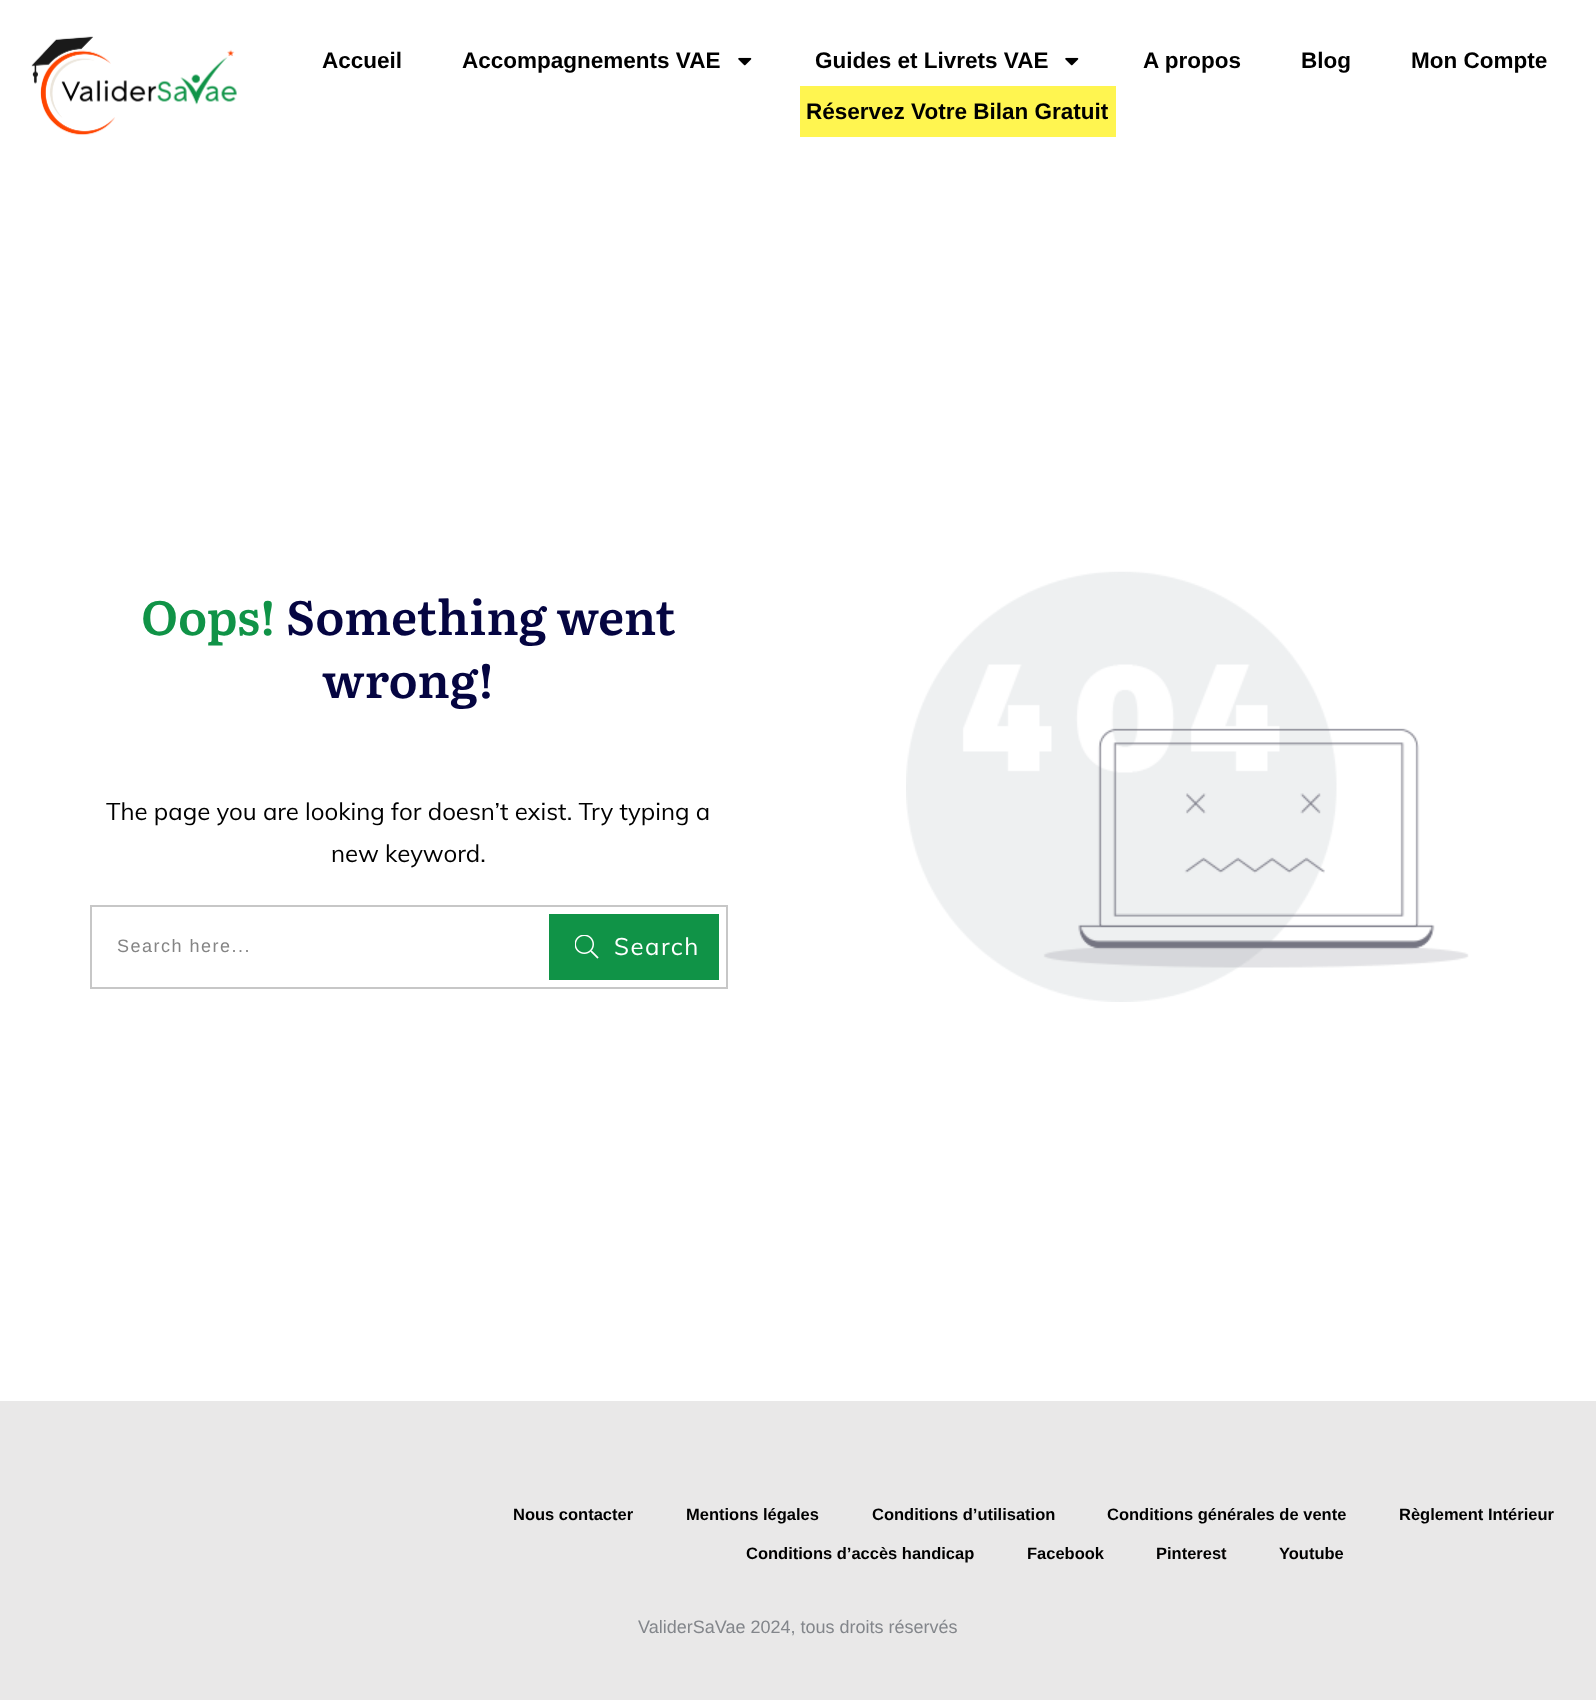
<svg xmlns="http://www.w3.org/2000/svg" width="1596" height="1700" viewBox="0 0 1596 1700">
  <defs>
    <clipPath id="clip1"><rect x="1028" y="1538" width="76" height="33"/></clipPath>
  </defs>
  <rect width="100%" height="100%" fill="rgb(255,255,255)"/>
  <image x="31" y="36" width="206" height="99" href="pic1.png"/>
  <g font-family="Liberation Sans" font-size="22.5" font-weight="bold" fill="rgb(0,0,0)">
    <text x="322" y="68">Accueil</text>
    <text x="462" y="68">Accompagnements VAE</text>
  </g>
  <image x="738" y="57" width="14" height="9" href="pic2.png"/>
  <text x="815" y="68" font-family="Liberation Sans" font-size="22.5" font-weight="bold" fill="rgb(0,0,0)">Guides et Livrets VAE</text>
  <image x="1065" y="57" width="14" height="9" href="pic2.png"/>
  <g font-family="Liberation Sans" font-size="22.5" font-weight="bold" fill="rgb(0,0,0)">
    <text x="1143" y="68">A propos</text>
    <text x="1301" y="68">Blog</text>
    <text x="1411" y="68">Mon Compte</text>
  </g>
  <rect x="800" y="86" width="316" height="51" fill="rgb(255,245,80)"/>
  <text x="806" y="119" font-family="Liberation Sans" font-size="22.5" font-weight="bold" fill="rgb(0,0,0)">Réservez Votre Bilan Gratuit</text>
  <text x="141" y="635" font-family="Literata" font-size="48" font-weight="600" fill="rgb(16,147,71)">Oops!</text>
  <g font-family="Literata" font-size="48" font-weight="600" fill="rgb(5,5,65)">
    <text x="286" y="635">Something went</text>
    <text x="322" y="698">wrong!</text>
  </g>
  <g font-family="Muli" font-size="24" fill="rgb(0,0,0)">
    <text x="106" y="820">The page you are looking for doesn’t exist. Try typing a</text>
    <text x="331" y="862">new keyword.</text>
  </g>
  <rect x="91" y="906" width="636" height="82" fill="none" stroke="rgb(199,199,199)" stroke-width="2"/>
  <text x="117" y="952" font-family="Liberation Sans" font-size="18" letter-spacing="1.5" fill="rgb(133,133,133)">Search here...</text>
  <rect x="549" y="914" width="170" height="66" fill="rgb(16,147,71)"/>
  <image x="575" y="935" width="24" height="24" href="pic3.png"/>
  <text x="614" y="955" font-family="Muli" font-size="24" letter-spacing="1.5" fill="rgb(255,255,255)">Search</text>
  <image x="906" y="571" width="563" height="431" href="pic4.png"/>
  <rect x="0" y="1401" width="1596" height="299" fill="rgb(233,232,232)"/>
  <g font-family="Liberation Sans" font-size="16.5" font-weight="bold" fill="rgb(0,0,0)">
    <text x="513" y="1520">Nous contacter</text>
    <text x="686" y="1520">Mentions légales</text>
    <text x="872" y="1520">Conditions d’utilisation</text>
    <text x="1107" y="1520">Conditions générales de vente</text>
    <text x="1399" y="1520">Règlement Intérieur</text>
    <text x="746" y="1559">Conditions d’accès handicap</text>
  </g>
  <g clip-path="url(#clip1)">
    <text x="1027" y="1559" font-family="Liberation Sans" font-size="16.5" font-weight="bold" fill="rgb(0,0,0)">Facebook</text>
  </g>
  <g font-family="Liberation Sans" font-size="16.5" font-weight="bold" fill="rgb(0,0,0)">
    <text x="1156" y="1559">Pinterest</text>
    <text x="1279" y="1559">Youtube</text>
  </g>
  <text x="638" y="1633" font-family="Liberation Sans" font-size="18" fill="rgb(131,134,139)">ValiderSaVae 2024, tous droits réservés</text>
</svg>
